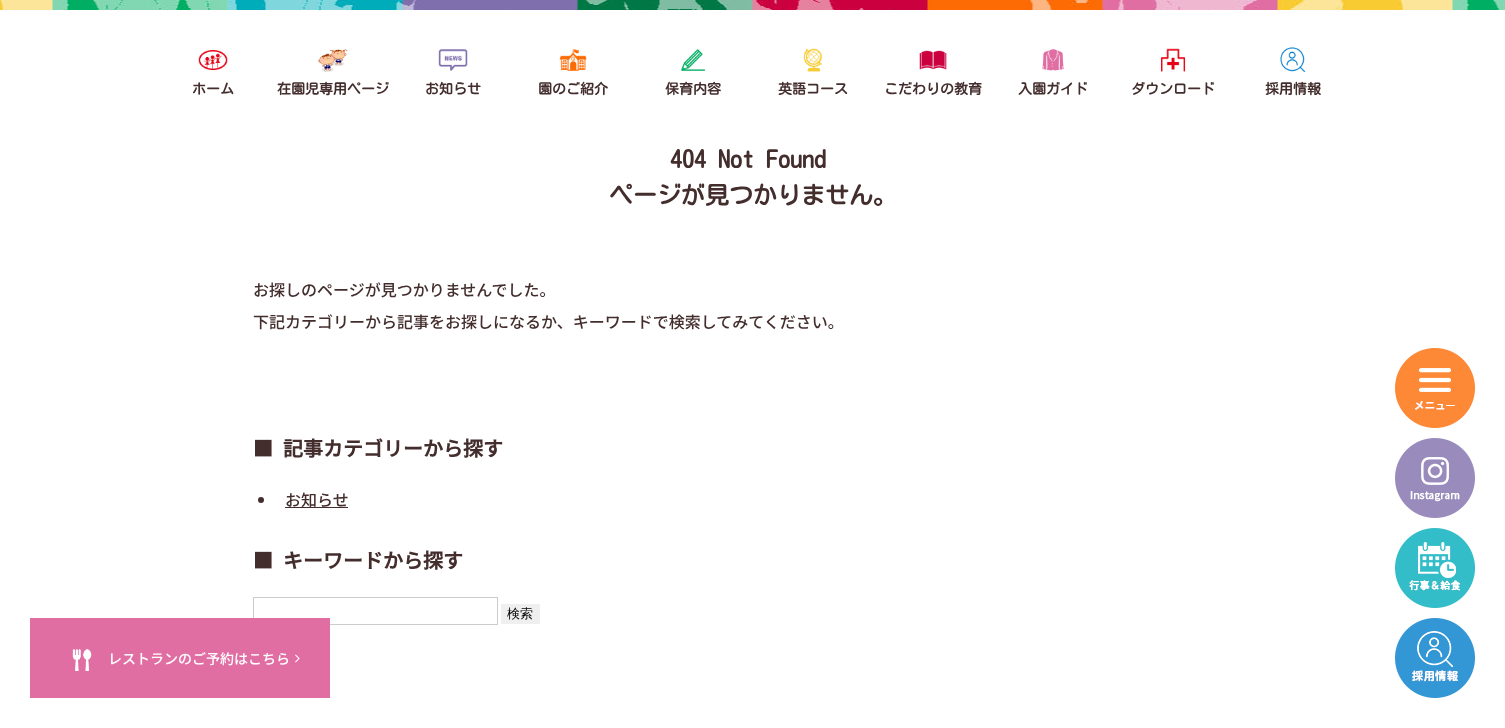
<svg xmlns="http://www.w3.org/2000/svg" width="1505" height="728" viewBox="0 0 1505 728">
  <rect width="100%" height="100%" fill="rgb(255,255,255)"/>
  <image x="0" y="0" width="1505" height="10" href="pic1.png"/>
  <image x="198" y="50" width="30" height="20" href="pic2.png"/>
  <text x="192" y="94" font-family="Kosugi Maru" font-size="14" font-weight="bold" fill="rgb(67,46,45)">ホーム</text>
  <image x="318" y="49" width="30" height="23" href="pic3.png"/>
  <text x="277" y="94" font-family="Kosugi Maru" font-size="14" font-weight="bold" fill="rgb(67,46,45)">在園児専用ページ</text>
  <image x="438" y="49" width="30" height="22" href="pic4.png"/>
  <text x="425" y="94" font-family="Kosugi Maru" font-size="14" font-weight="bold" fill="rgb(67,46,45)">お知らせ</text>
  <image x="559" y="49" width="28" height="22" href="pic5.png"/>
  <text x="538" y="94" font-family="Kosugi Maru" font-size="14" font-weight="bold" fill="rgb(67,46,45)">園のご紹介</text>
  <image x="681" y="49" width="25" height="22" href="pic6.png"/>
  <text x="665" y="94" font-family="Kosugi Maru" font-size="14" font-weight="bold" fill="rgb(67,46,45)">保育内容</text>
  <image x="803" y="48" width="20" height="24" href="pic7.png"/>
  <text x="778" y="94" font-family="Kosugi Maru" font-size="14" font-weight="bold" fill="rgb(67,46,45)">英語コース</text>
  <image x="919" y="50" width="28" height="20" href="pic8.png"/>
  <text x="884" y="94" font-family="Kosugi Maru" font-size="14" font-weight="bold" fill="rgb(67,46,45)">こだわりの教育</text>
  <image x="1042" y="49" width="22" height="22" href="pic9.png"/>
  <text x="1018" y="94" font-family="Kosugi Maru" font-size="14" font-weight="bold" fill="rgb(67,46,45)">入園ガイド</text>
  <image x="1161" y="48" width="25" height="24" href="pic10.png"/>
  <text x="1131" y="94" font-family="Kosugi Maru" font-size="14" font-weight="bold" fill="rgb(67,46,45)">ダウンロード</text>
  <image x="1280" y="47" width="26" height="25" href="pic11.png"/>
  <text x="1265" y="94" font-family="Kosugi Maru" font-size="14" font-weight="bold" fill="rgb(67,46,45)">採用情報</text>
  <image x="1395" y="348" width="80" height="80" href="pic12.png"/>
  <image x="1395" y="438" width="80" height="80" href="pic13.png"/>
  <image x="1395" y="528" width="80" height="80" href="pic14.png"/>
  <image x="1395" y="618" width="80" height="80" href="pic15.png"/>
  <g font-family="Kosugi Maru" font-size="24" font-weight="bold" fill="rgb(67,46,45)">
    <text x="670" y="168">404 Not Found</text>
    <text x="609" y="204">ページが見つかりません。</text>
  </g>
  <g font-family="Noto Sans JP" font-size="16" font-weight="100" fill="rgb(67,46,45)">
    <text x="253" y="296">お探しのページが見つかりませんでした。</text>
    <text x="253" y="328">下記カテゴリーから記事をお探しになるか、キーワードで検索してみてください。</text>
  </g>
  <g font-family="Noto Sans JP" font-size="20" font-weight="bold" fill="rgb(67,46,45)">
    <text x="253" y="456">■</text>
    <text x="283" y="456">記事カテゴリーから探す</text>
  </g>
  <circle cx="261" cy="500" r="3" fill="rgb(67,46,45)"/>
  <rect x="285" y="507" width="63" height="1" fill="rgb(67,46,45)"/>
  <text x="285" y="506" font-family="Noto Sans JP" font-size="16" font-weight="100" fill="rgb(67,46,45)">お知らせ</text>
  <g font-family="Noto Sans JP" font-size="20" font-weight="bold" fill="rgb(67,46,45)">
    <text x="253" y="568">■</text>
    <text x="283" y="568">キーワードから探す</text>
  </g>
  <rect x="253.5" y="597.5" width="244" height="27" fill="none" stroke="rgb(204,204,204)"/>
  <rect x="501" y="604" width="39" height="20" fill="rgb(239,239,239)"/>
  <text x="507" y="618" font-family="WenQuanYi Zen Hei" font-size="13" font-weight="500" fill="rgb(0,0,0)">検索</text>
  <rect x="30" y="618" width="300" height="80" fill="rgb(225,110,163)"/>
  <image x="72" y="649" width="20" height="22" href="pic16.png"/>
  <text x="108" y="664" font-family="Noto Sans JP" font-size="14" font-weight="100" fill="rgb(255,255,255)">レストランのご予約はこちら</text>
  <image x="295" y="654" width="5" height="9" href="pic17.png"/>
</svg>
